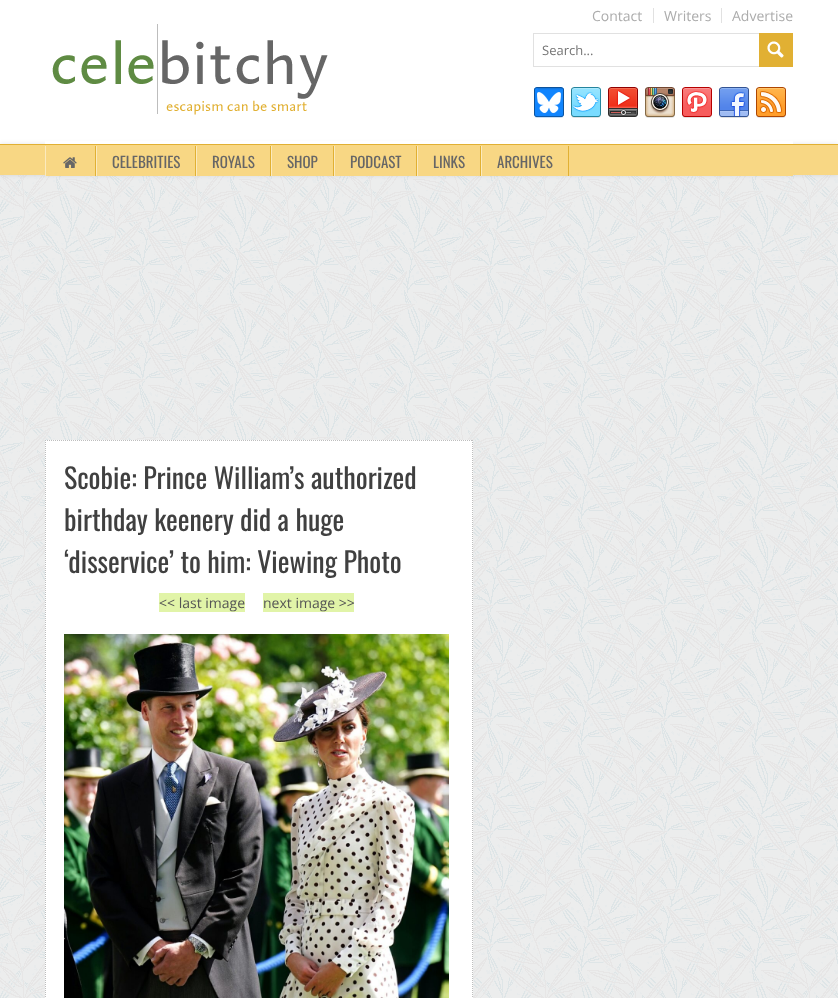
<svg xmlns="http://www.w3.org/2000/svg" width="838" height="998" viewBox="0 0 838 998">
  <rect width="100%" height="100%" fill="rgb(255,255,255)"/>
  <image x="0" y="175" width="838" height="823" href="pic1.png"/>
  <rect x="0" y="144" width="838" height="31" fill="rgba(0,0,0,0.1)" filter="blur(2.5px)"/>
  <rect x="45" y="141" width="748" height="3" fill="rgb(255,255,255)"/>
  <rect x="653" y="8" width="1" height="15" fill="rgb(225,225,225)"/>
  <text x="592" y="21" font-family="Open Sans" font-size="14" fill="rgb(172,172,172)">Contact</text>
  <rect x="721" y="8" width="1" height="15" fill="rgb(225,225,225)"/>
  <g font-family="Open Sans" font-size="14" fill="rgb(172,172,172)">
    <text x="664" y="21">Writers</text>
    <text x="732" y="21">Advertise</text>
  </g>
  <image x="52" y="24" width="276" height="91" href="pic2.png"/>
  <rect x="533.5" y="33.5" width="259" height="33" fill="none" stroke="rgb(225,225,225)"/>
  <text x="542" y="55" font-family="Open Sans" font-size="13" fill="rgb(117,117,117)">Search...</text>
  <rect x="759" y="33" width="34" height="34" fill="rgb(225,176,51)"/>
  <image x="767" y="41" width="17" height="17" href="pic3.png"/>
  <image x="534" y="87" width="30" height="31" href="pic4.png"/>
  <image x="571" y="87" width="30" height="31" href="pic5.png"/>
  <image x="608" y="87" width="30" height="30" href="pic6.png"/>
  <image x="645" y="87" width="30" height="31" href="pic7.png"/>
  <image x="682" y="87" width="30" height="31" href="pic8.png"/>
  <image x="719" y="87" width="30" height="31" href="pic9.png"/>
  <image x="756" y="87" width="30" height="31" href="pic10.png"/>
  <rect x="0" y="145" width="838" height="30" fill="rgb(248,215,132)"/>
  <rect x="0" y="144" width="838" height="1" fill="rgb(225,176,51)"/>
  <rect x="45" y="175" width="748" height="1" fill="rgb(248,215,132)"/>
  <rect x="95" y="146" width="1" height="30" fill="rgb(225,176,51)"/>
  <rect x="45" y="146" width="1" height="30" fill="rgb(251,234,190)"/>
  <image x="63" y="157" width="14" height="11" href="pic11.png"/>
  <rect x="195" y="146" width="1" height="30" fill="rgb(225,176,51)"/>
  <rect x="96" y="146" width="1" height="30" fill="rgb(251,234,190)"/>
  <text x="112" y="168" font-family="Oswald" font-size="15" fill="rgb(102,102,102)">CELEBRITIES</text>
  <rect x="270" y="146" width="1" height="30" fill="rgb(225,176,51)"/>
  <rect x="196" y="146" width="1" height="30" fill="rgb(251,234,190)"/>
  <text x="212" y="168" font-family="Oswald" font-size="15" fill="rgb(102,102,102)">ROYALS</text>
  <rect x="333" y="146" width="1" height="30" fill="rgb(225,176,51)"/>
  <rect x="271" y="146" width="1" height="30" fill="rgb(251,234,190)"/>
  <text x="287" y="168" font-family="Oswald" font-size="15" fill="rgb(102,102,102)">SHOP</text>
  <rect x="416" y="146" width="1" height="30" fill="rgb(225,176,51)"/>
  <rect x="334" y="146" width="1" height="30" fill="rgb(251,234,190)"/>
  <text x="350" y="168" font-family="Oswald" font-size="15" fill="rgb(102,102,102)">PODCAST</text>
  <rect x="480" y="146" width="1" height="30" fill="rgb(225,176,51)"/>
  <rect x="417" y="146" width="1" height="30" fill="rgb(251,234,190)"/>
  <text x="433" y="168" font-family="Oswald" font-size="15" fill="rgb(102,102,102)">LINKS</text>
  <rect x="568" y="146" width="1" height="30" fill="rgb(225,176,51)"/>
  <rect x="481" y="146" width="1" height="30" fill="rgb(251,234,190)"/>
  <text x="497" y="168" font-family="Oswald" font-size="15" fill="rgb(102,102,102)">ARCHIVES</text>
  <rect x="45" y="440" width="428" height="558" fill="rgb(255,255,255)"/>
  <path d="M45 440.5H473" fill="none" stroke="rgb(190,190,190)" stroke-dasharray="1 1"/>
  <path d="M472.5 440V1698" fill="none" stroke="rgb(190,190,190)" stroke-dasharray="1 1"/>
  <path d="M45.5 440V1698" fill="none" stroke="rgb(190,190,190)" stroke-dasharray="1 1"/>
  <g font-family="Oswald" font-size="28" fill="rgb(64,64,64)">
    <text>
      <tspan x="64" y="489">Scobie: Prince William’s authorized</tspan>
      <tspan x="64" y="531">birthday keenery did a huge</tspan>
      <tspan x="64" y="573">‘disservice’ to him: Viewing Photo</tspan>
    </text>
  </g>
  <rect x="159" y="593" width="86" height="19" fill="rgb(225,244,168)"/>
  <text x="159" y="608" font-family="Open Sans" font-size="14" fill="rgb(85,85,85)">&lt;&lt; last image</text>
  <rect x="263" y="593" width="91" height="19" fill="rgb(225,244,168)"/>
  <text x="263" y="608" font-family="Open Sans" font-size="14" fill="rgb(85,85,85)">next image &gt;&gt;</text>
  <image x="64" y="634" width="385" height="364" href="pic12.png"/>
</svg>
